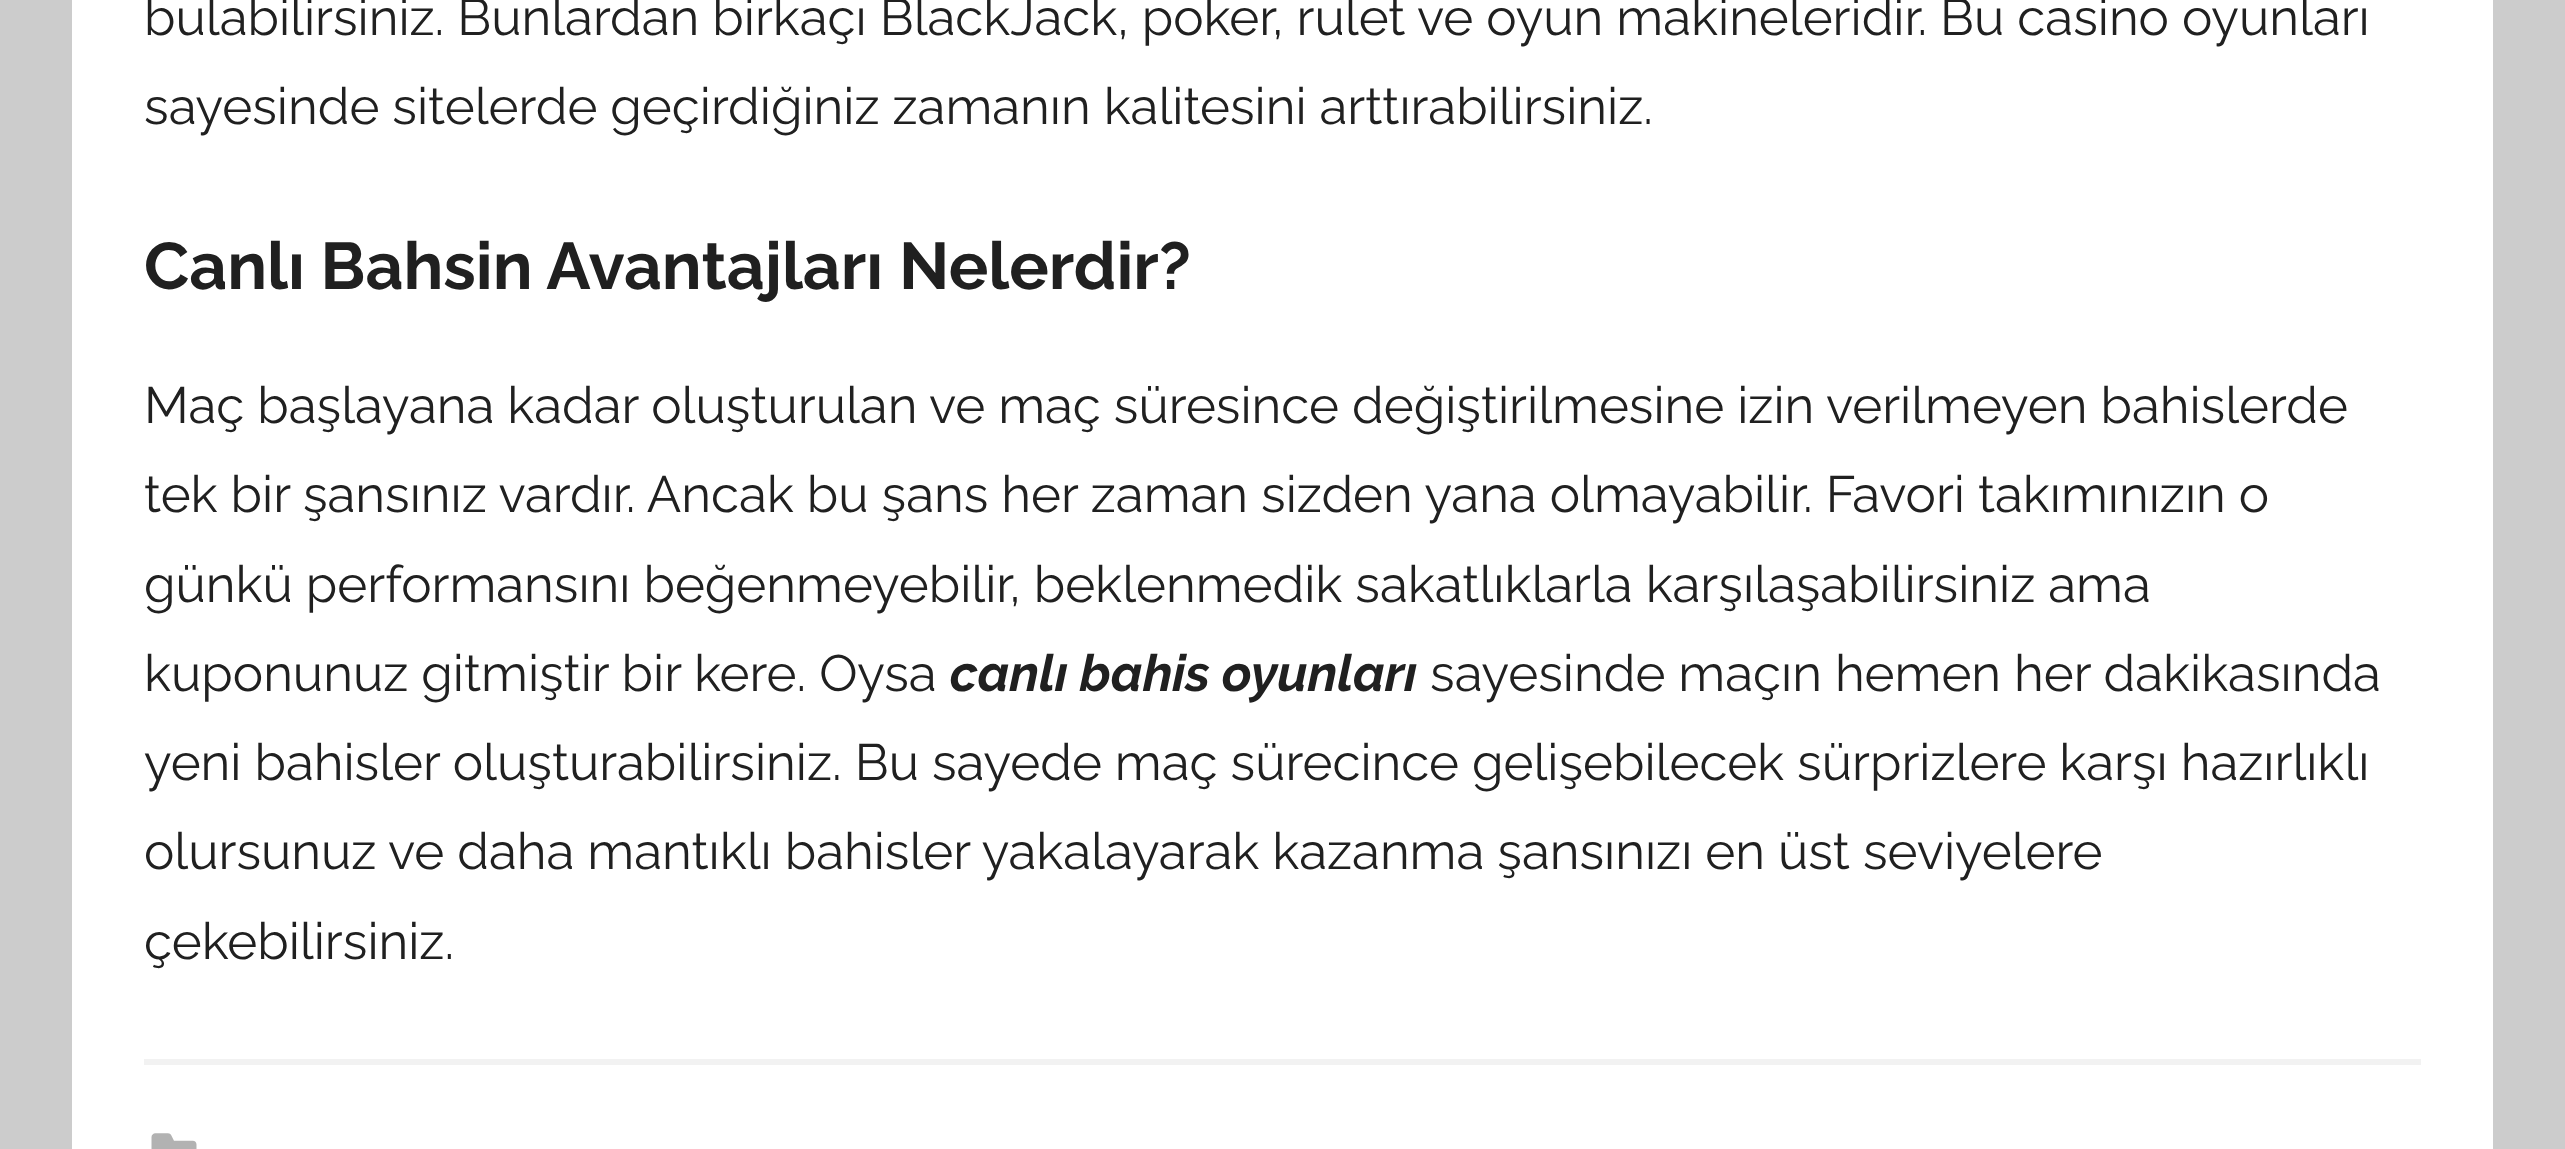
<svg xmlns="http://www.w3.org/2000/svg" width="2565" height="1149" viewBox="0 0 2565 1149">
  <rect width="100%" height="100%" fill="rgb(204,204,204)"/>
  <rect x="72" y="0" width="2421" height="1149" fill="rgb(255,255,255)"/>
  <g font-family="Raleway" font-size="51" font-weight="100" fill="rgb(32,32,32)">
    <text>
      <tspan x="144" y="35">bulabilirsiniz. Bunlardan birkaçı BlackJack, poker, rulet ve oyun makineleridir. Bu casino oyunları</tspan>
      <tspan x="144" y="124">sayesinde sitelerde geçirdiğiniz zamanın kalitesini arttırabilirsiniz.</tspan>
    </text>
  </g>
  <text x="144" y="289" font-family="'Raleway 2'" font-size="66" font-weight="100" fill="rgb(32,32,32)">Canlı Bahsin Avantajları Nelerdir?</text>
  <g font-family="Raleway" font-size="51" font-weight="100" fill="rgb(32,32,32)">
    <text>
      <tspan x="144" y="423">Maç başlayana kadar oluşturulan ve maç süresince değiştirilmesine izin verilmeyen bahislerde</tspan>
      <tspan x="144" y="512">tek bir şansınız vardır. Ancak bu şans her zaman sizden yana olmayabilir. Favori takımınızın o</tspan>
      <tspan x="144" y="602">günkü performansını beğenmeyebilir, beklenmedik sakatlıklarla karşılaşabilirsiniz ama</tspan>
      <tspan x="144" y="691">kuponunuz gitmiştir bir kere. Oysa</tspan>
    </text>
  </g>
  <text x="950" y="691" font-family="Raleway" font-size="51" font-weight="100" font-style="italic" fill="rgb(32,32,32)">canlı bahis oyunları</text>
  <g font-family="Raleway" font-size="51" font-weight="100" fill="rgb(32,32,32)">
    <text x="1430" y="691">sayesinde maçın hemen her dakikasında</text>
    <text>
      <tspan x="144" y="780">yeni bahisler oluşturabilirsiniz. Bu sayede maç sürecince gelişebilecek sürprizlere karşı hazırlıklı</tspan>
      <tspan x="144" y="869">olursunuz ve daha mantıklı bahisler yakalayarak kazanma şansınızı en üst seviyelere</tspan>
      <tspan x="144" y="959">çekebilirsiniz.</tspan>
    </text>
  </g>
  <rect x="144" y="1059" width="2277" height="6" fill="rgb(242,242,242)"/>
  <image x="151" y="1133" width="46" height="16" href="pic1.png"/>
</svg>
